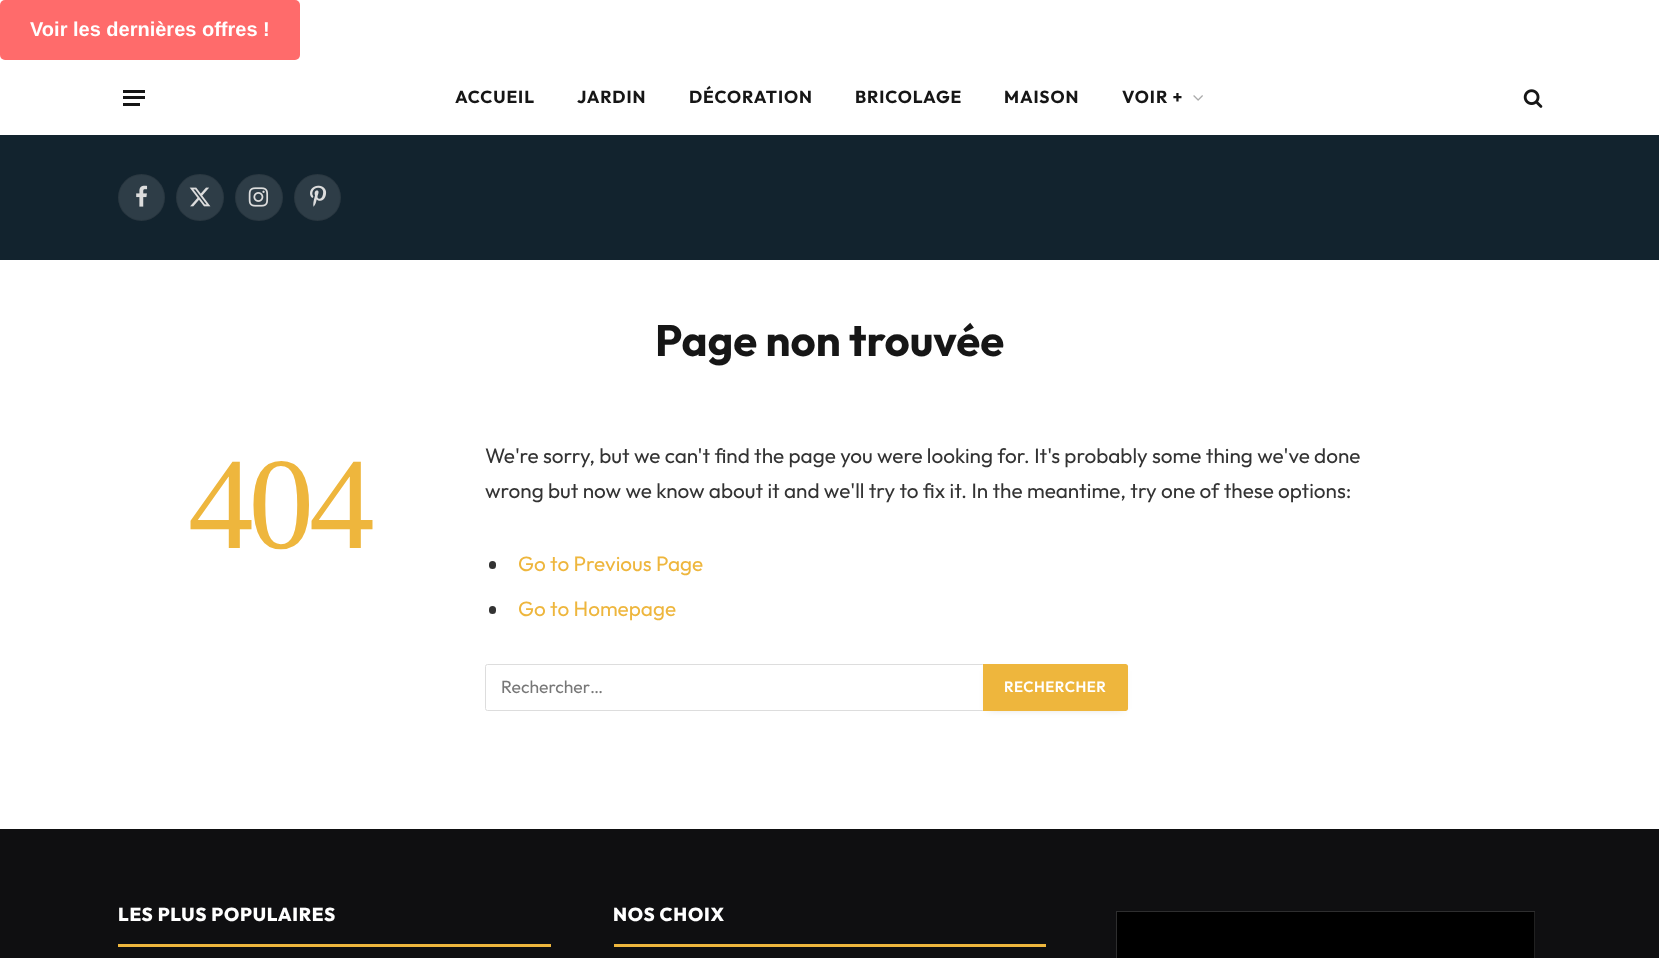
<svg xmlns="http://www.w3.org/2000/svg" width="1659" height="958" viewBox="0 0 1659 958">
  <rect width="100%" height="100%" fill="rgb(255,255,255)"/>
  <rect x="0" y="0" width="300" height="60" rx="5" fill="rgb(255,107,107)"/>
  <text x="30" y="36" font-family="Liberation Sans" font-size="20" font-weight="bold" fill="rgb(255,255,255)">Voir les dernières offres !</text>
  <rect x="123" y="103" width="17" height="3" fill="rgb(22,22,22)"/>
  <rect x="123" y="90" width="22" height="3" fill="rgb(22,22,22)"/>
  <rect x="123" y="96" width="22" height="3" fill="rgb(22,22,22)"/>
  <g font-family="Outfit" font-size="17.5" font-weight="bold" letter-spacing="0.9" fill="rgb(22,22,22)">
    <text x="455" y="103">ACCUEIL</text>
    <text x="577" y="103">JARDIN</text>
    <text x="689" y="103">DÉCORATION</text>
    <text x="855" y="103">BRICOLAGE</text>
    <text x="1004" y="103">MAISON</text>
    <text x="1122" y="103">VOIR +</text>
  </g>
  <image x="1193" y="95" width="10" height="6" href="pic1.png"/>
  <image x="1523" y="89" width="20" height="19" href="pic2.png"/>
  <rect x="0" y="135" width="1659" height="125" fill="rgb(18,35,46)"/>
  <circle cx="141.5" cy="197.5" r="23.5" fill="rgb(46,61,71)"/>
  <circle cx="141.5" cy="197.5" r="23" fill="none" stroke="rgba(0,0,0,0.09)"/>
  <image x="136" y="185" width="12" height="22" href="pic3.png"/>
  <rect x="176" y="174" width="48" height="47" rx="23.5" fill="rgb(46,61,71)"/>
  <rect x="176.5" y="174.5" width="47" height="46" rx="23" fill="none" stroke="rgba(0,0,0,0.09)"/>
  <image x="189" y="187" width="22" height="20" href="pic4.png"/>
  <rect x="235" y="174" width="48" height="47" rx="23.5" fill="rgb(46,61,71)"/>
  <rect x="235.5" y="174.5" width="47" height="46" rx="23" fill="none" stroke="rgba(0,0,0,0.09)"/>
  <image x="248" y="187" width="21" height="20" href="pic5.png"/>
  <circle cx="317.5" cy="197.5" r="23.5" fill="rgb(46,61,71)"/>
  <circle cx="317.5" cy="197.5" r="23" fill="none" stroke="rgba(0,0,0,0.09)"/>
  <image x="310" y="185" width="17" height="22" href="pic6.png"/>
  <text x="655" y="356" font-family="Outfit" font-size="43.75" font-weight="bold" fill="rgb(22,22,22)">Page non trouvée</text>
  <text x="188" y="548" font-family="Liberation Serif" font-size="131" letter-spacing="-5" fill="rgb(238,182,61)">404</text>
  <g font-family="Outfit" font-size="20.75" fill="rgb(51,51,51)">
    <text>
      <tspan x="485" y="463">We're sorry, but we can't find the page you were looking for. It's probably some thing we've done</tspan>
      <tspan x="485" y="498">wrong but now we know about it and we'll try to fix it. In the meantime, try one of these options:</tspan>
    </text>
  </g>
  <rect x="489" y="561" width="7" height="8" rx="3.5" fill="rgb(51,51,51)"/>
  <text x="518" y="571" font-family="Outfit" font-size="20.75" fill="rgb(238,182,61)">Go to Previous Page</text>
  <rect x="489" y="606" width="7" height="8" rx="3.5" fill="rgb(51,51,51)"/>
  <text x="518" y="616" font-family="Outfit" font-size="20.75" fill="rgb(238,182,61)">Go to Homepage</text>
  <rect x="485.5" y="664.5" width="499" height="46" rx="2" fill="none" stroke="rgb(221,221,221)"/>
  <text x="501" y="693" font-family="Outfit" font-size="17.5" fill="rgb(119,119,119)">Rechercher…</text>
  <rect x="988" y="671" width="135" height="38" fill="rgba(0,0,0,0.16)" filter="blur(4.5px)"/>
  <path d="M983 664H1125.5C1127 664 1128 665 1128 666.5V708.5C1128 710 1127 711 1125.5 711H983Z" fill="rgb(238,182,61)"/>
  <text x="1004" y="692" font-family="Outfit" font-size="15" font-weight="600" letter-spacing="0.5" fill="rgb(255,255,255)">RECHERCHER</text>
  <rect x="0" y="829" width="1659" height="129" fill="rgb(15,15,17)"/>
  <rect x="118" y="944" width="433" height="3" fill="rgb(238,182,61)"/>
  <text x="118" y="921" font-family="Outfit" font-size="18.75" font-weight="800" letter-spacing="0.75" fill="rgb(255,255,255)">LES PLUS POPULAIRES</text>
  <rect x="614" y="944" width="432" height="3" fill="rgb(238,182,61)"/>
  <text x="613" y="921" font-family="Outfit" font-size="18.75" font-weight="800" letter-spacing="0.75" fill="rgb(255,255,255)">NOS CHOIX</text>
  <rect x="1117" y="912" width="418" height="46" fill="rgb(0,0,0)"/>
  <rect x="1116.5" y="911.5" width="418" height="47" fill="none" stroke="rgba(255,255,255,0.13)"/>
</svg>
